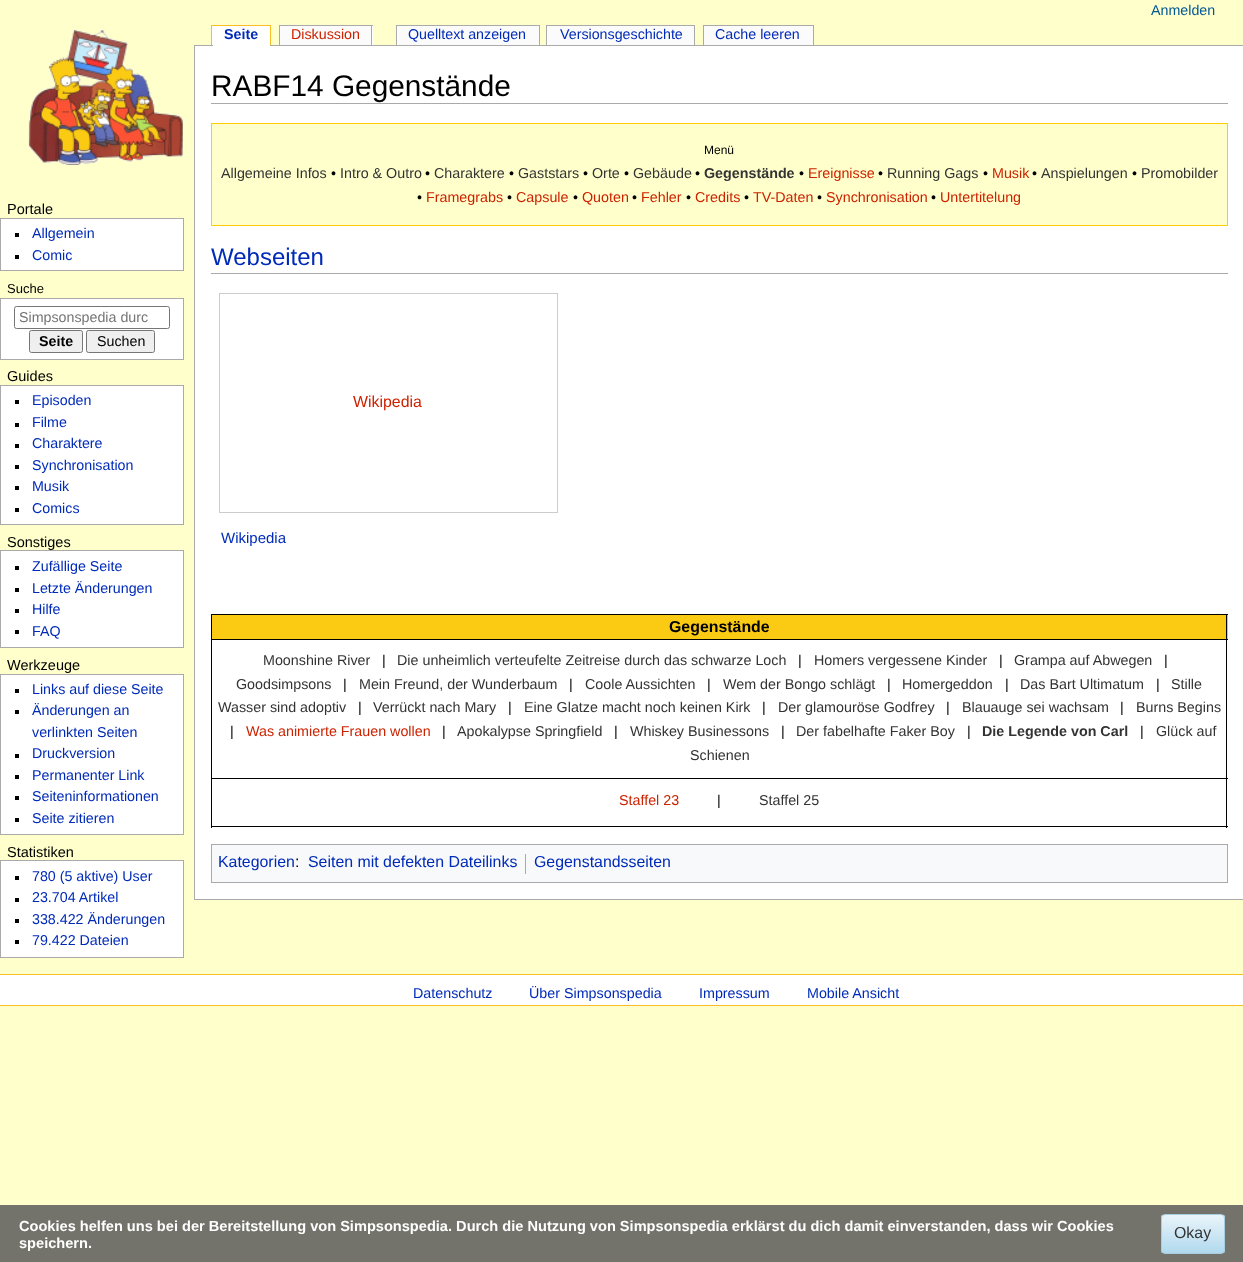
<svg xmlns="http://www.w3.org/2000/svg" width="1243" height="1262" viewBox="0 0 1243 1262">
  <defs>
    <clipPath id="clip1"><rect x="1161" y="1214" width="64" height="40" rx="4"/></clipPath>
    <linearGradient id="g1" gradientUnits="userSpaceOnUse" x1="1193" y1="1215" x2="1193" y2="1253"><stop offset="0" stop-color="rgb(234,244,250)"/><stop offset="1" stop-color="rgb(176,217,238)"/></linearGradient>
  </defs>
  <rect width="100%" height="100%" fill="rgb(255,255,204)"/>
  <text x="1151" y="15" font-family="Liberation Sans" font-size="14.25" fill="rgb(0,88,150)">Anmelden</text>
  <image x="28" y="30" width="155" height="135" href="pic1.png"/>
  <rect x="194" y="45" width="1049" height="1" fill="rgb(170,170,170)"/>
  <rect x="213" y="26" width="57" height="20" fill="rgb(255,255,255)"/>
  <text x="224" y="39" font-family="Liberation Sans" font-size="14.25" font-weight="bold" fill="rgb(0,43,184)">Seite</text>
  <rect x="212" y="26" width="1" height="19" fill="rgb(255,255,255)"/>
  <rect x="211" y="25" width="60" height="1" fill="rgb(250,189,35)"/>
  <rect x="270" y="25" width="1" height="20" fill="rgb(250,189,35)"/>
  <rect x="211" y="25" width="1" height="20" fill="rgb(250,189,35)"/>
  <rect x="280" y="26" width="91" height="19" fill="rgb(251,251,251)"/>
  <text x="291" y="39" font-family="Liberation Sans" font-size="14.25" fill="rgb(204,34,0)">Diskussion</text>
  <rect x="372" y="26" width="1" height="19" fill="rgb(255,255,255)"/>
  <rect x="279" y="25" width="94" height="1" fill="rgb(170,170,170)"/>
  <rect x="371" y="25" width="1" height="20" fill="rgb(170,170,170)"/>
  <rect x="279" y="25" width="1" height="20" fill="rgb(170,170,170)"/>
  <rect x="398" y="26" width="141" height="19" fill="rgb(251,251,251)"/>
  <text x="408" y="39" font-family="Liberation Sans" font-size="14.25" fill="rgb(0,43,184)">Quelltext anzeigen</text>
  <rect x="397" y="26" width="1" height="19" fill="rgb(255,255,255)"/>
  <rect x="396" y="25" width="144" height="1" fill="rgb(170,170,170)"/>
  <rect x="539" y="25" width="1" height="20" fill="rgb(170,170,170)"/>
  <rect x="396" y="25" width="1" height="20" fill="rgb(170,170,170)"/>
  <rect x="548" y="26" width="146" height="19" fill="rgb(251,251,251)"/>
  <text x="560" y="39" font-family="Liberation Sans" font-size="14.25" fill="rgb(0,43,184)">Versionsgeschichte</text>
  <rect x="547" y="26" width="1" height="19" fill="rgb(255,255,255)"/>
  <rect x="546" y="25" width="149" height="1" fill="rgb(170,170,170)"/>
  <rect x="694" y="25" width="1" height="20" fill="rgb(170,170,170)"/>
  <rect x="546" y="25" width="1" height="20" fill="rgb(170,170,170)"/>
  <rect x="704" y="26" width="109" height="19" fill="rgb(251,251,251)"/>
  <text x="715" y="39" font-family="Liberation Sans" font-size="14.25" fill="rgb(0,43,184)">Cache leeren</text>
  <rect x="703" y="25" width="111" height="1" fill="rgb(170,170,170)"/>
  <rect x="813" y="25" width="1" height="20" fill="rgb(170,170,170)"/>
  <rect x="703" y="25" width="1" height="20" fill="rgb(170,170,170)"/>
  <text x="7" y="214" font-family="Liberation Sans" font-size="14.5" fill="rgb(0,0,0)">Portale</text>
  <rect x="0.5" y="218.5" width="183" height="52" fill="rgb(255,255,255)" stroke="rgb(170,170,170)"/>
  <rect x="15" y="233" width="4" height="4" fill="rgb(0,0,0)"/>
  <text x="32" y="238" font-family="Liberation Sans" font-size="14.25" fill="rgb(0,43,184)">Allgemein</text>
  <rect x="15" y="255" width="4" height="4" fill="rgb(0,0,0)"/>
  <text x="32" y="260" font-family="Liberation Sans" font-size="14.25" fill="rgb(0,43,184)">Comic</text>
  <text x="7" y="293" font-family="Liberation Sans" font-size="13" fill="rgb(0,0,0)">Suche</text>
  <rect x="0.5" y="298.5" width="183" height="61" fill="rgb(255,255,255)" stroke="rgb(170,170,170)"/>
  <rect x="14.5" y="306.5" width="155" height="22" rx="2" fill="none" stroke="rgb(118,118,118)"/>
  <text x="19" y="322" font-family="Liberation Sans" font-size="14.25" fill="rgb(117,117,117)">Simpsonspedia durc</text>
  <rect x="29.5" y="330.5" width="53" height="22" rx="2" fill="rgb(239,239,239)" stroke="rgb(118,118,118)"/>
  <text x="39" y="346" font-family="Liberation Sans" font-size="14.25" font-weight="bold" fill="rgb(0,0,0)">Seite</text>
  <rect x="86.5" y="330.5" width="68" height="22" rx="2" fill="rgb(239,239,239)" stroke="rgb(118,118,118)"/>
  <text x="97" y="346" font-family="Liberation Sans" font-size="14.25" fill="rgb(0,0,0)">Suchen</text>
  <text x="7" y="381" font-family="Liberation Sans" font-size="14.5" fill="rgb(0,0,0)">Guides</text>
  <rect x="0.5" y="385.5" width="183" height="139" fill="rgb(255,255,255)" stroke="rgb(170,170,170)"/>
  <rect x="15" y="400" width="4" height="4" fill="rgb(0,0,0)"/>
  <text x="32" y="405" font-family="Liberation Sans" font-size="14.25" fill="rgb(0,43,184)">Episoden</text>
  <rect x="15" y="423" width="4" height="4" fill="rgb(0,0,0)"/>
  <text x="32" y="427" font-family="Liberation Sans" font-size="14.25" fill="rgb(0,43,184)">Filme</text>
  <rect x="15" y="444" width="4" height="4" fill="rgb(0,0,0)"/>
  <text x="32" y="448" font-family="Liberation Sans" font-size="14.25" fill="rgb(0,43,184)">Charaktere</text>
  <rect x="15" y="465" width="4" height="4" fill="rgb(0,0,0)"/>
  <text x="32" y="470" font-family="Liberation Sans" font-size="14.25" fill="rgb(0,43,184)">Synchronisation</text>
  <rect x="15" y="486" width="4" height="4" fill="rgb(0,0,0)"/>
  <text x="32" y="491" font-family="Liberation Sans" font-size="14.25" fill="rgb(0,43,184)">Musik</text>
  <rect x="15" y="508" width="4" height="4" fill="rgb(0,0,0)"/>
  <text x="32" y="513" font-family="Liberation Sans" font-size="14.25" fill="rgb(0,43,184)">Comics</text>
  <text x="7" y="547" font-family="Liberation Sans" font-size="14.5" fill="rgb(0,0,0)">Sonstiges</text>
  <rect x="0.5" y="550.5" width="183" height="97" fill="rgb(255,255,255)" stroke="rgb(170,170,170)"/>
  <rect x="15" y="566" width="4" height="4" fill="rgb(0,0,0)"/>
  <text x="32" y="571" font-family="Liberation Sans" font-size="14.25" fill="rgb(0,43,184)">Zufällige Seite</text>
  <rect x="15" y="588" width="4" height="4" fill="rgb(0,0,0)"/>
  <text x="32" y="593" font-family="Liberation Sans" font-size="14.25" fill="rgb(0,43,184)">Letzte Änderungen</text>
  <rect x="15" y="609" width="4" height="4" fill="rgb(0,0,0)"/>
  <text x="32" y="614" font-family="Liberation Sans" font-size="14.25" fill="rgb(0,43,184)">Hilfe</text>
  <rect x="15" y="630" width="4" height="4" fill="rgb(0,0,0)"/>
  <text x="32" y="636" font-family="Liberation Sans" font-size="14.25" fill="rgb(0,43,184)">FAQ</text>
  <text x="7" y="670" font-family="Liberation Sans" font-size="14.5" fill="rgb(0,0,0)">Werkzeuge</text>
  <rect x="0.5" y="674.5" width="183" height="160" fill="rgb(255,255,255)" stroke="rgb(170,170,170)"/>
  <rect x="15" y="689" width="4" height="4" fill="rgb(0,0,0)"/>
  <text x="32" y="694" font-family="Liberation Sans" font-size="14.25" fill="rgb(0,43,184)">Links auf diese Seite</text>
  <rect x="15" y="710" width="4" height="4" fill="rgb(0,0,0)"/>
  <g font-family="Liberation Sans" font-size="14.25" fill="rgb(0,43,184)">
    <text>
      <tspan x="32" y="715">Änderungen an</tspan>
      <tspan x="32" y="737">verlinkten Seiten</tspan>
    </text>
  </g>
  <rect x="15" y="754" width="4" height="4" fill="rgb(0,0,0)"/>
  <text x="32" y="758" font-family="Liberation Sans" font-size="14.25" fill="rgb(0,43,184)">Druckversion</text>
  <rect x="15" y="775" width="4" height="4" fill="rgb(0,0,0)"/>
  <text x="32" y="780" font-family="Liberation Sans" font-size="14.25" fill="rgb(0,43,184)">Permanenter Link</text>
  <rect x="15" y="796" width="4" height="4" fill="rgb(0,0,0)"/>
  <text x="32" y="801" font-family="Liberation Sans" font-size="14.25" fill="rgb(0,43,184)">Seiteninformationen</text>
  <rect x="15" y="818" width="4" height="4" fill="rgb(0,0,0)"/>
  <text x="32" y="823" font-family="Liberation Sans" font-size="14.25" fill="rgb(0,43,184)">Seite zitieren</text>
  <text x="7" y="857" font-family="Liberation Sans" font-size="14.5" fill="rgb(0,0,0)">Statistiken</text>
  <rect x="0.5" y="860.5" width="183" height="97" fill="rgb(255,255,255)" stroke="rgb(170,170,170)"/>
  <rect x="15" y="876" width="4" height="4" fill="rgb(0,0,0)"/>
  <text x="32" y="881" font-family="Liberation Sans" font-size="14.25" fill="rgb(0,43,184)">780 (5 aktive) User</text>
  <rect x="15" y="898" width="4" height="4" fill="rgb(0,0,0)"/>
  <text x="32" y="902" font-family="Liberation Sans" font-size="14.25" fill="rgb(0,43,184)">23.704 Artikel</text>
  <rect x="15" y="919" width="4" height="4" fill="rgb(0,0,0)"/>
  <text x="32" y="924" font-family="Liberation Sans" font-size="14.25" fill="rgb(0,43,184)">338.422 Änderungen</text>
  <rect x="15" y="940" width="4" height="4" fill="rgb(0,0,0)"/>
  <text x="32" y="945" font-family="Liberation Sans" font-size="14.25" fill="rgb(0,43,184)">79.422 Dateien</text>
  <rect x="195" y="46" width="1048" height="853" fill="rgb(255,255,255)"/>
  <rect x="194" y="899" width="1049" height="1" fill="rgb(170,170,170)"/>
  <rect x="194" y="45" width="1" height="855" fill="rgb(170,170,170)"/>
  <rect x="211" y="103" width="1017" height="1" fill="rgb(170,170,170)"/>
  <text x="211" y="96" font-family="Liberation Sans" font-size="29.8" fill="rgb(0,0,0)">RABF14 Gegenstände</text>
  <rect x="211.5" y="123.5" width="1016" height="102" fill="rgb(255,255,204)" stroke="rgb(255,204,0)"/>
  <text x="704" y="154" font-family="Liberation Sans" font-size="12" fill="rgb(0,0,0)">Menü</text>
  <text x="221" y="178" font-family="Liberation Sans" font-size="14.3" fill="rgb(51,51,51)">Allgemeine Infos</text>
  <text x="331" y="178" font-family="Liberation Sans" font-size="14.3" fill="rgb(0,0,0)">•</text>
  <text x="340" y="178" font-family="Liberation Sans" font-size="14.3" fill="rgb(51,51,51)">Intro &amp; Outro</text>
  <text x="425" y="178" font-family="Liberation Sans" font-size="14.3" fill="rgb(0,0,0)">•</text>
  <text x="434" y="178" font-family="Liberation Sans" font-size="14.3" fill="rgb(51,51,51)">Charaktere</text>
  <text x="509" y="178" font-family="Liberation Sans" font-size="14.3" fill="rgb(0,0,0)">•</text>
  <text x="518" y="178" font-family="Liberation Sans" font-size="14.3" fill="rgb(51,51,51)">Gaststars</text>
  <text x="583" y="178" font-family="Liberation Sans" font-size="14.3" fill="rgb(0,0,0)">•</text>
  <text x="592" y="178" font-family="Liberation Sans" font-size="14.3" fill="rgb(51,51,51)">Orte</text>
  <text x="624" y="178" font-family="Liberation Sans" font-size="14.3" fill="rgb(0,0,0)">•</text>
  <text x="633" y="178" font-family="Liberation Sans" font-size="14.3" fill="rgb(51,51,51)">Gebäude</text>
  <text x="695" y="178" font-family="Liberation Sans" font-size="14.3" fill="rgb(0,0,0)">•</text>
  <text x="704" y="178" font-family="Liberation Sans" font-size="14.3" font-weight="bold" fill="rgb(51,51,51)">Gegenstände</text>
  <text x="799" y="178" font-family="Liberation Sans" font-size="14.3" fill="rgb(0,0,0)">•</text>
  <text x="808" y="178" font-family="Liberation Sans" font-size="14.3" fill="rgb(204,34,0)">Ereignisse</text>
  <text x="878" y="178" font-family="Liberation Sans" font-size="14.3" fill="rgb(0,0,0)">•</text>
  <text x="887" y="178" font-family="Liberation Sans" font-size="14.3" fill="rgb(51,51,51)">Running Gags</text>
  <text x="983" y="178" font-family="Liberation Sans" font-size="14.3" fill="rgb(0,0,0)">•</text>
  <text x="992" y="178" font-family="Liberation Sans" font-size="14.3" fill="rgb(204,34,0)">Musik</text>
  <text x="1032" y="178" font-family="Liberation Sans" font-size="14.3" fill="rgb(0,0,0)">•</text>
  <text x="1041" y="178" font-family="Liberation Sans" font-size="14.3" fill="rgb(51,51,51)">Anspielungen</text>
  <text x="1132" y="178" font-family="Liberation Sans" font-size="14.3" fill="rgb(0,0,0)">•</text>
  <text x="1141" y="178" font-family="Liberation Sans" font-size="14.3" fill="rgb(51,51,51)">Promobilder</text>
  <text x="417" y="202" font-family="Liberation Sans" font-size="14.3" fill="rgb(0,0,0)">•</text>
  <text x="426" y="202" font-family="Liberation Sans" font-size="14.3" fill="rgb(204,34,0)">Framegrabs</text>
  <text x="507" y="202" font-family="Liberation Sans" font-size="14.3" fill="rgb(0,0,0)">•</text>
  <text x="516" y="202" font-family="Liberation Sans" font-size="14.3" fill="rgb(204,34,0)">Capsule</text>
  <text x="573" y="202" font-family="Liberation Sans" font-size="14.3" fill="rgb(0,0,0)">•</text>
  <text x="582" y="202" font-family="Liberation Sans" font-size="14.3" fill="rgb(204,34,0)">Quoten</text>
  <text x="632" y="202" font-family="Liberation Sans" font-size="14.3" fill="rgb(0,0,0)">•</text>
  <text x="641" y="202" font-family="Liberation Sans" font-size="14.3" fill="rgb(204,34,0)">Fehler</text>
  <text x="686" y="202" font-family="Liberation Sans" font-size="14.3" fill="rgb(0,0,0)">•</text>
  <text x="695" y="202" font-family="Liberation Sans" font-size="14.3" fill="rgb(204,34,0)">Credits</text>
  <text x="744" y="202" font-family="Liberation Sans" font-size="14.3" fill="rgb(0,0,0)">•</text>
  <text x="753" y="202" font-family="Liberation Sans" font-size="14.3" fill="rgb(204,34,0)">TV-Daten</text>
  <text x="817" y="202" font-family="Liberation Sans" font-size="14.3" fill="rgb(0,0,0)">•</text>
  <text x="826" y="202" font-family="Liberation Sans" font-size="14.3" fill="rgb(204,34,0)">Synchronisation</text>
  <text x="931" y="202" font-family="Liberation Sans" font-size="14.3" fill="rgb(0,0,0)">•</text>
  <text x="940" y="202" font-family="Liberation Sans" font-size="14.3" fill="rgb(204,34,0)">Untertitelung</text>
  <rect x="211" y="273" width="1017" height="1" fill="rgb(170,170,170)"/>
  <text x="211" y="265" font-family="Liberation Sans" font-size="24" fill="rgb(0,43,184)">Webseiten</text>
  <rect x="219.5" y="293.5" width="338" height="219" fill="none" stroke="rgb(204,204,204)"/>
  <text x="353" y="407" font-family="Liberation Sans" font-size="15.9" fill="rgb(204,34,0)">Wikipedia</text>
  <text x="221" y="543" font-family="Liberation Sans" font-size="15" fill="rgb(0,43,184)">Wikipedia</text>
  <rect x="211" y="614" width="1017" height="1" fill="rgb(0,0,0)"/>
  <rect x="212" y="615" width="1016" height="24" fill="rgb(251,203,20)"/>
  <rect x="1226" y="614" width="1" height="214" fill="rgb(0,0,0)"/>
  <rect x="211" y="826" width="1017" height="1" fill="rgb(0,0,0)"/>
  <rect x="211" y="614" width="1" height="214" fill="rgb(0,0,0)"/>
  <text x="669" y="632" font-family="Liberation Sans" font-size="15.9" font-weight="bold" fill="rgb(0,0,0)">Gegenstände</text>
  <rect x="211" y="639" width="1017" height="1" fill="rgb(0,0,0)"/>
  <text x="263" y="665" font-family="Liberation Sans" font-size="14.3" fill="rgb(51,51,51)">Moonshine River</text>
  <text x="382" y="665" font-family="Liberation Sans" font-size="14.3" fill="rgb(0,0,0)">|</text>
  <text x="397" y="665" font-family="Liberation Sans" font-size="14.3" fill="rgb(51,51,51)">Die unheimlich verteufelte Zeitreise durch das schwarze Loch</text>
  <text x="798" y="665" font-family="Liberation Sans" font-size="14.3" fill="rgb(0,0,0)">|</text>
  <text x="814" y="665" font-family="Liberation Sans" font-size="14.3" fill="rgb(51,51,51)">Homers vergessene Kinder</text>
  <text x="999" y="665" font-family="Liberation Sans" font-size="14.3" fill="rgb(0,0,0)">|</text>
  <text x="1014" y="665" font-family="Liberation Sans" font-size="14.3" fill="rgb(51,51,51)">Grampa auf Abwegen</text>
  <text x="1164" y="665" font-family="Liberation Sans" font-size="14.3" fill="rgb(0,0,0)">|</text>
  <text x="236" y="689" font-family="Liberation Sans" font-size="14.3" fill="rgb(51,51,51)">Goodsimpsons</text>
  <text x="343" y="689" font-family="Liberation Sans" font-size="14.3" fill="rgb(0,0,0)">|</text>
  <text x="359" y="689" font-family="Liberation Sans" font-size="14.3" fill="rgb(51,51,51)">Mein Freund, der Wunderbaum</text>
  <text x="569" y="689" font-family="Liberation Sans" font-size="14.3" fill="rgb(0,0,0)">|</text>
  <text x="585" y="689" font-family="Liberation Sans" font-size="14.3" fill="rgb(51,51,51)">Coole Aussichten</text>
  <text x="707" y="689" font-family="Liberation Sans" font-size="14.3" fill="rgb(0,0,0)">|</text>
  <text x="723" y="689" font-family="Liberation Sans" font-size="14.3" fill="rgb(51,51,51)">Wem der Bongo schlägt</text>
  <text x="887" y="689" font-family="Liberation Sans" font-size="14.3" fill="rgb(0,0,0)">|</text>
  <text x="902" y="689" font-family="Liberation Sans" font-size="14.3" fill="rgb(51,51,51)">Homergeddon</text>
  <text x="1005" y="689" font-family="Liberation Sans" font-size="14.3" fill="rgb(0,0,0)">|</text>
  <text x="1020" y="689" font-family="Liberation Sans" font-size="14.3" fill="rgb(51,51,51)">Das Bart Ultimatum</text>
  <text x="1156" y="689" font-family="Liberation Sans" font-size="14.3" fill="rgb(0,0,0)">|</text>
  <g font-family="Liberation Sans" font-size="14.3" fill="rgb(51,51,51)">
    <text x="1171" y="689">Stille</text>
    <text x="218" y="712">Wasser sind adoptiv</text>
  </g>
  <text x="358" y="712" font-family="Liberation Sans" font-size="14.3" fill="rgb(0,0,0)">|</text>
  <text x="373" y="712" font-family="Liberation Sans" font-size="14.3" fill="rgb(51,51,51)">Verrückt nach Mary</text>
  <text x="508" y="712" font-family="Liberation Sans" font-size="14.3" fill="rgb(0,0,0)">|</text>
  <text x="524" y="712" font-family="Liberation Sans" font-size="14.3" fill="rgb(51,51,51)">Eine Glatze macht noch keinen Kirk</text>
  <text x="762" y="712" font-family="Liberation Sans" font-size="14.3" fill="rgb(0,0,0)">|</text>
  <text x="778" y="712" font-family="Liberation Sans" font-size="14.3" fill="rgb(51,51,51)">Der glamouröse Godfrey</text>
  <text x="946" y="712" font-family="Liberation Sans" font-size="14.3" fill="rgb(0,0,0)">|</text>
  <text x="962" y="712" font-family="Liberation Sans" font-size="14.3" fill="rgb(51,51,51)">Blauauge sei wachsam</text>
  <text x="1120" y="712" font-family="Liberation Sans" font-size="14.3" fill="rgb(0,0,0)">|</text>
  <text x="1136" y="712" font-family="Liberation Sans" font-size="14.3" fill="rgb(51,51,51)">Burns Begins</text>
  <text x="230" y="736" font-family="Liberation Sans" font-size="14.3" fill="rgb(0,0,0)">|</text>
  <text x="246" y="736" font-family="Liberation Sans" font-size="14.3" fill="rgb(204,34,0)">Was animierte Frauen wollen</text>
  <text x="442" y="736" font-family="Liberation Sans" font-size="14.3" fill="rgb(0,0,0)">|</text>
  <text x="457" y="736" font-family="Liberation Sans" font-size="14.3" fill="rgb(51,51,51)">Apokalypse Springfield</text>
  <text x="614" y="736" font-family="Liberation Sans" font-size="14.3" fill="rgb(0,0,0)">|</text>
  <text x="630" y="736" font-family="Liberation Sans" font-size="14.3" fill="rgb(51,51,51)">Whiskey Businessons</text>
  <text x="781" y="736" font-family="Liberation Sans" font-size="14.3" fill="rgb(0,0,0)">|</text>
  <text x="796" y="736" font-family="Liberation Sans" font-size="14.3" fill="rgb(51,51,51)">Der fabelhafte Faker Boy</text>
  <text x="967" y="736" font-family="Liberation Sans" font-size="14.3" fill="rgb(0,0,0)">|</text>
  <text x="982" y="736" font-family="Liberation Sans" font-size="14.3" font-weight="bold" fill="rgb(51,51,51)">Die Legende von Carl</text>
  <text x="1140" y="736" font-family="Liberation Sans" font-size="14.3" fill="rgb(0,0,0)">|</text>
  <g font-family="Liberation Sans" font-size="14.3" fill="rgb(51,51,51)">
    <text x="1156" y="736">Glück auf</text>
    <text x="690" y="760">Schienen</text>
  </g>
  <rect x="211" y="778" width="1017" height="1" fill="rgb(0,0,0)"/>
  <text x="619" y="805" font-family="Liberation Sans" font-size="14.3" fill="rgb(204,34,0)">Staffel 23</text>
  <text x="717" y="805" font-family="Liberation Sans" font-size="14.3" fill="rgb(0,0,0)">|</text>
  <text x="759" y="805" font-family="Liberation Sans" font-size="14.3" fill="rgb(51,51,51)">Staffel 25</text>
  <rect x="211.5" y="844.5" width="1016" height="38" fill="rgb(248,249,250)" stroke="rgb(170,170,170)"/>
  <text x="218" y="867" font-family="Liberation Sans" font-size="15.9" fill="rgb(0,43,184)">Kategorien</text>
  <text x="295" y="867" font-family="Liberation Sans" font-size="15.9" fill="rgb(0,0,0)">:</text>
  <text x="308" y="867" font-family="Liberation Sans" font-size="15.9" fill="rgb(0,43,184)">Seiten mit defekten Dateilinks</text>
  <rect x="525" y="854" width="1" height="20" fill="rgb(170,170,170)"/>
  <text x="534" y="867" font-family="Liberation Sans" font-size="15.9" fill="rgb(0,43,184)">Gegenstandsseiten</text>
  <rect x="0" y="1205" width="1243" height="57" fill="rgb(115,115,107)"/>
  <g font-family="Liberation Sans" font-size="14.6" font-weight="bold" fill="rgb(255,255,255)">
    <text>
      <tspan x="19" y="1231">Cookies helfen uns bei der Bereitstellung von Simpsonspedia. Durch die Nutzung von Simpsonspedia erklärst du dich damit einverstanden, dass wir Cookies</tspan>
      <tspan x="19" y="1248">speichern.</tspan>
    </text>
  </g>
  <g clip-path="url(#clip1)">
    <rect x="1161" y="1215" width="64" height="38" fill="url(#g1)"/>
  </g>
  <rect x="1161.5" y="1214.5" width="63" height="39" rx="3.5" fill="none" stroke="rgb(166,206,225)"/>
  <text x="1174" y="1238" font-family="Liberation Sans" font-size="15.9" fill="rgb(51,51,51)">Okay</text>
  <rect x="0" y="975" width="1243" height="30" fill="rgb(255,255,255)"/>
  <rect x="0" y="974" width="1243" height="1" fill="rgb(250,189,35)"/>
  <rect x="0" y="1005" width="1243" height="1" fill="rgb(250,189,35)"/>
  <g font-family="Liberation Sans" font-size="14.3" fill="rgb(0,43,184)">
    <text x="413" y="998">Datenschutz</text>
    <text x="529" y="998">Über Simpsonspedia</text>
    <text x="699" y="998">Impressum</text>
    <text x="807" y="998">Mobile Ansicht</text>
  </g>
</svg>
